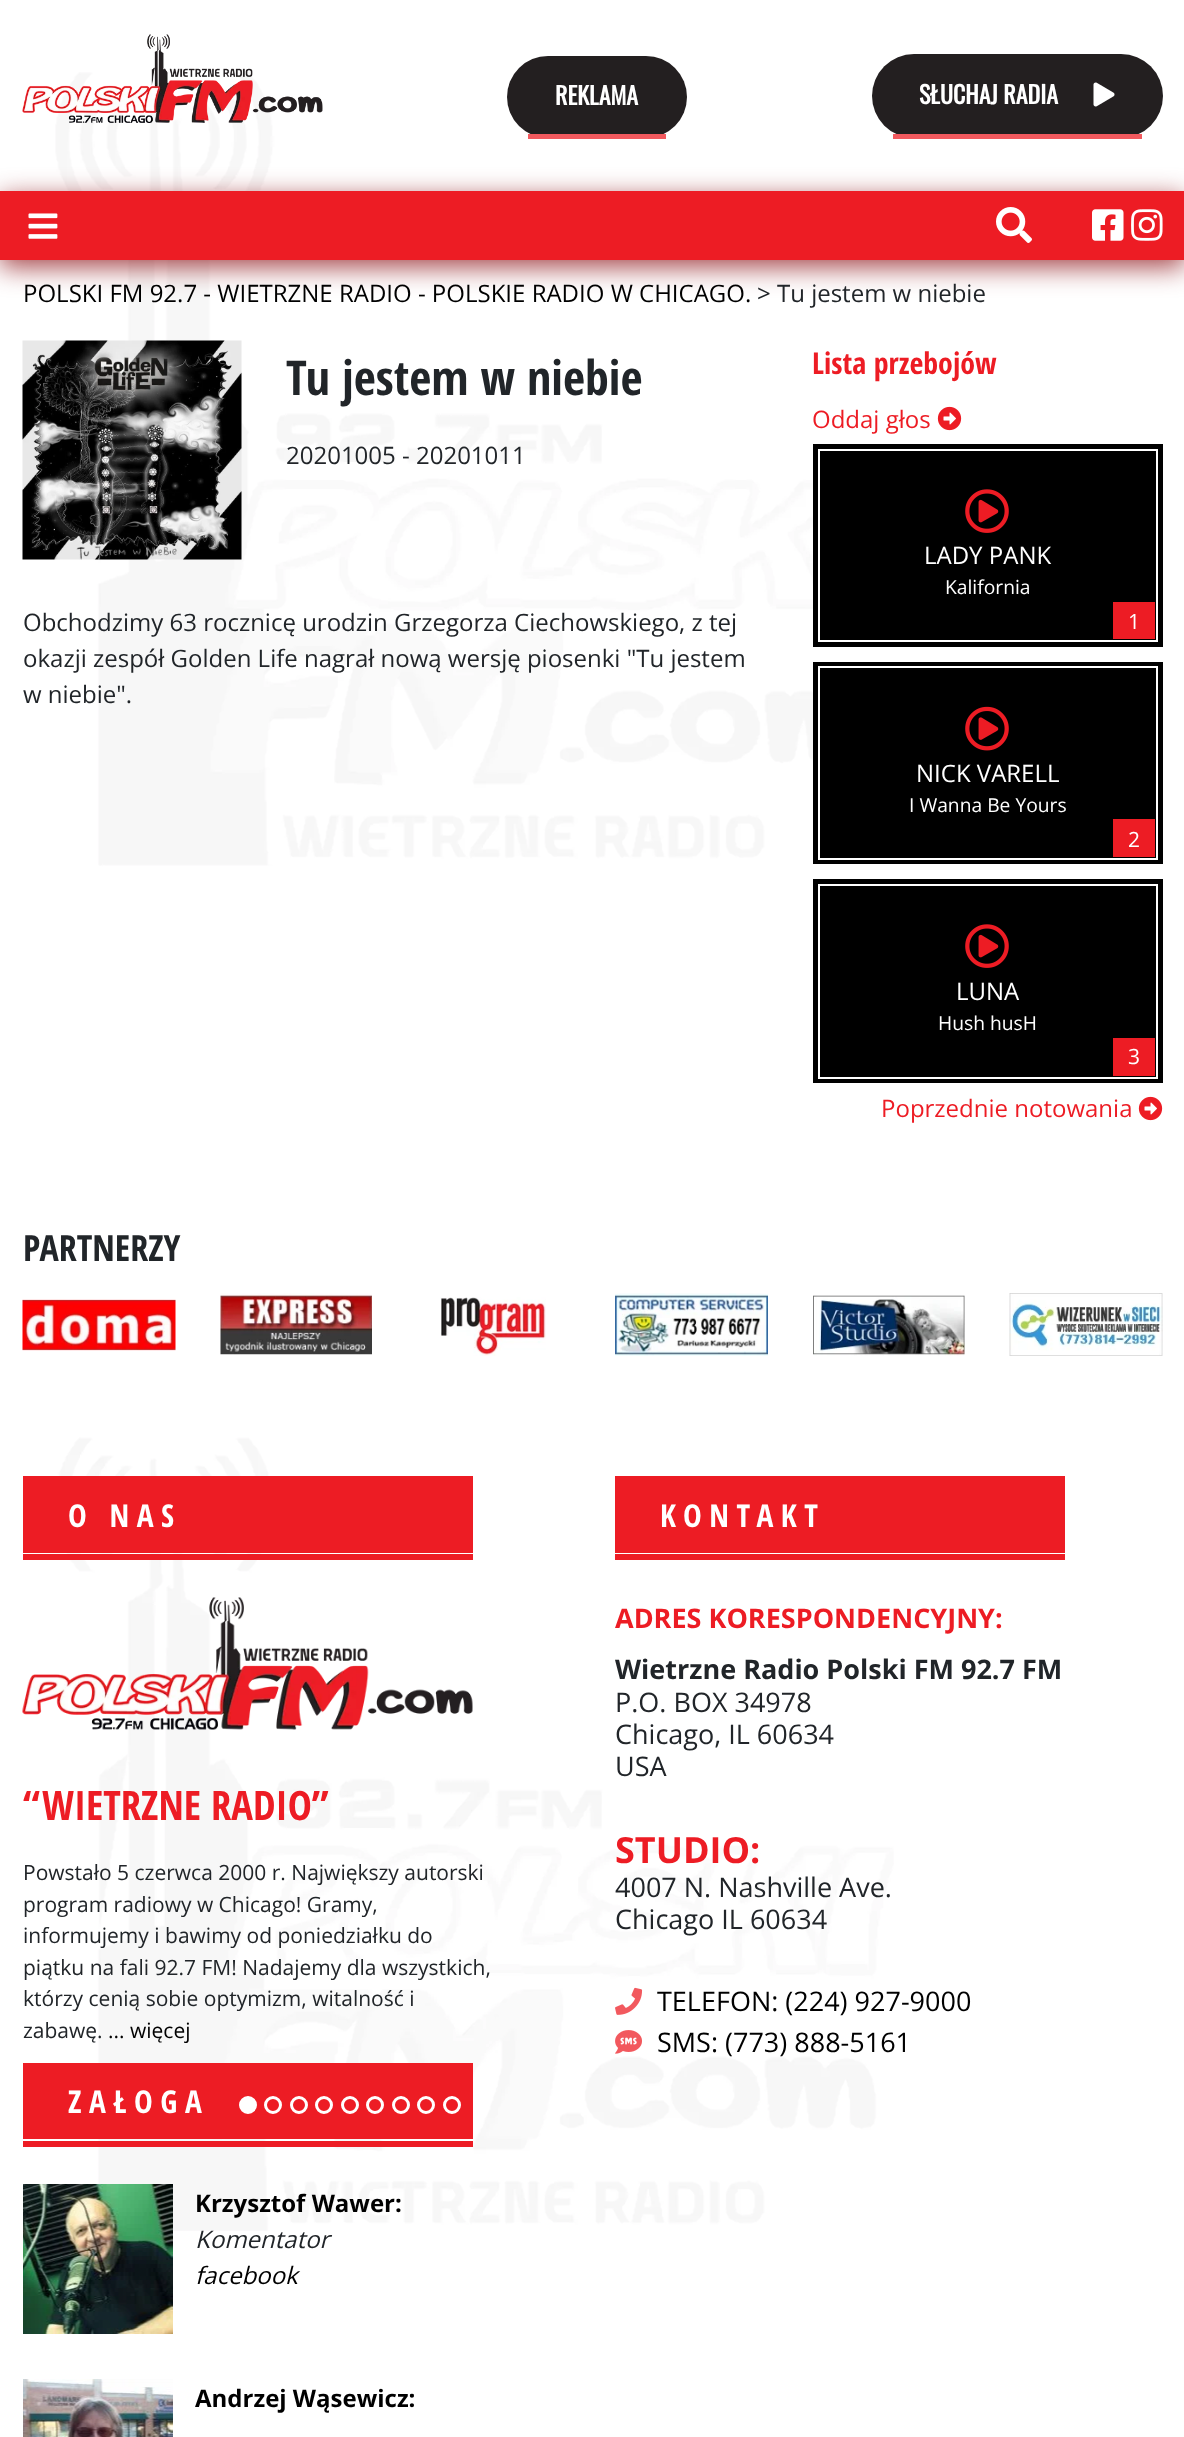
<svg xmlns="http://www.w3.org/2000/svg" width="1184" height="2437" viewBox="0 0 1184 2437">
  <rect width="100%" height="100%" fill="rgb(255,255,255)"/>
  <image x="55" y="72" width="839" height="2159" href="pic1.png"/>
  <image x="22" y="34" width="301" height="89" href="pic2.png"/>
  <rect x="507" y="56" width="180" height="82" rx="41" fill="rgb(35,31,32)"/>
  <rect x="528" y="134" width="138" height="5" fill="rgb(242,89,94)"/>
  <text x="555" y="105" font-family="Oswald" font-size="24" font-weight="bold" fill="rgb(255,255,255)">REKLAMA</text>
  <rect x="872" y="54" width="291" height="84" rx="42" fill="rgb(35,31,32)"/>
  <rect x="893" y="134" width="249" height="5" fill="rgb(242,89,94)"/>
  <text x="919" y="104" font-family="Oswald" font-size="24" font-weight="bold" fill="rgb(255,255,255)">SŁUCHAJ RADIA</text>
  <image x="1093" y="82" width="22" height="25" href="pic3.png"/>
  <rect x="0" y="198" width="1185" height="69" fill="rgba(142,22,27,0.8)" filter="blur(13.5px)"/>
  <rect x="0" y="191" width="1184" height="69" fill="rgb(237,28,36)"/>
  <image x="28" y="213" width="30" height="26" href="pic4.png"/>
  <image x="996" y="207" width="36" height="36" href="pic5.png"/>
  <image x="1092" y="209" width="32" height="32" href="pic6.png"/>
  <image x="1131" y="209" width="32" height="32" href="pic7.png"/>
  <text x="23" y="302" font-family="Open Sans" font-size="24" fill="rgb(0,0,0)">POLSKI FM 92.7 - WIETRZNE RADIO - POLSKIE RADIO W CHICAGO.</text>
  <text x="757" y="302" font-family="Open Sans" font-size="24" fill="rgb(33,37,41)">&gt; Tu jestem w niebie</text>
  <image x="22" y="340" width="220" height="220" href="pic8.png"/>
  <text x="286" y="395" font-family="Open Sans Condensed" font-size="48" font-weight="bold" fill="rgb(33,37,41)">Tu jestem w niebie</text>
  <g font-family="Open Sans" font-size="24" fill="rgb(33,37,41)">
    <text x="286" y="464">20201005 - 20201011</text>
    <text>
      <tspan x="23" y="631">Obchodzimy 63 rocznicę urodzin Grzegorza Ciechowskiego, z tej</tspan>
      <tspan x="23" y="667">okazji zespół Golden Life nagrał nową wersję piosenki "Tu jestem</tspan>
      <tspan x="23" y="703">w niebie".</tspan>
    </text>
  </g>
  <text x="812" y="374" font-family="Open Sans Condensed" font-size="30" font-weight="bold" fill="rgb(237,28,36)">Lista przebojów</text>
  <text x="812" y="428" font-family="Open Sans" font-size="24" fill="rgb(237,28,36)">Oddaj głos</text>
  <image x="937" y="406" width="25" height="25" href="pic9.png"/>
  <rect x="813" y="444" width="350" height="203" fill="rgb(0,0,0)"/>
  <image x="965" y="489" width="44" height="44" href="pic10.png"/>
  <rect x="1113" y="602" width="42" height="37" fill="rgb(237,28,36)"/>
  <rect x="819" y="450" width="338" height="191" fill="none" stroke="rgb(255,255,255)" stroke-width="2"/>
  <text x="924" y="564" font-family="Open Sans" font-size="24" fill="rgb(255,255,255)">LADY PANK</text>
  <text x="945" y="594" font-family="Open Sans" font-size="19.25" fill="rgb(255,255,255)">Kalifornia</text>
  <text x="1128" y="629" font-family="Open Sans" font-size="21" fill="rgb(255,255,255)">1</text>
  <rect x="813" y="662" width="350" height="202" fill="rgb(0,0,0)"/>
  <image x="965" y="706" width="44" height="45" href="pic11.png"/>
  <rect x="1113" y="819" width="42" height="38" fill="rgb(237,28,36)"/>
  <rect x="819" y="667" width="338" height="192" fill="none" stroke="rgb(255,255,255)" stroke-width="2"/>
  <text x="916" y="782" font-family="Open Sans" font-size="24" fill="rgb(255,255,255)">NICK VARELL</text>
  <text x="909" y="812" font-family="Open Sans" font-size="19.25" fill="rgb(255,255,255)">I Wanna Be Yours</text>
  <text x="1128" y="847" font-family="Open Sans" font-size="21" fill="rgb(255,255,255)">2</text>
  <rect x="813" y="879" width="350" height="204" fill="rgb(0,0,0)"/>
  <image x="965" y="924" width="44" height="44" href="pic10.png"/>
  <rect x="1113" y="1038" width="42" height="38" fill="rgb(237,28,36)"/>
  <rect x="819" y="885" width="338" height="193" fill="none" stroke="rgb(255,255,255)" stroke-width="2"/>
  <text x="956" y="1000" font-family="Open Sans" font-size="24" fill="rgb(255,255,255)">LUNA</text>
  <text x="938" y="1030" font-family="Open Sans" font-size="19.25" fill="rgb(255,255,255)">Hush husH</text>
  <text x="1128" y="1064" font-family="Open Sans" font-size="21" fill="rgb(255,255,255)">3</text>
  <text x="881" y="1117" font-family="Open Sans" font-size="24" fill="rgb(237,28,36)">Poprzednie notowania</text>
  <image x="1138" y="1096" width="25" height="25" href="pic9.png"/>
  <text x="23" y="1261" font-family="Open Sans Condensed" font-size="36" font-weight="bold" fill="rgb(33,37,41)">PARTNERZY</text>
  <image x="22" y="1299" width="154" height="52" href="pic12.png"/>
  <image x="220" y="1293" width="152" height="62" href="pic13.png"/>
  <image x="440" y="1297" width="106" height="59" href="pic14.png"/>
  <image x="615" y="1293" width="153" height="63" href="pic15.png"/>
  <image x="813" y="1295" width="152" height="61" href="pic16.png"/>
  <image x="1009" y="1293" width="154" height="63" href="pic17.png"/>
  <rect x="23" y="1476" width="450" height="77" fill="rgb(237,28,36)"/>
  <text x="68" y="1527" font-family="Open Sans Condensed" font-size="31.5" font-weight="bold" letter-spacing="7.5" fill="rgb(255,255,255)">O NAS</text>
  <rect x="23" y="1554" width="450" height="6" fill="rgb(237,28,36)"/>
  <image x="22" y="1597" width="451" height="133" href="pic18.png"/>
  <text x="23" y="1820" font-family="Open Sans Condensed" font-size="40.5" font-weight="bold" fill="rgb(237,28,36)">“WIETRZNE RADIO”</text>
  <g font-family="Open Sans" font-size="21" fill="rgb(33,37,41)">
    <text>
      <tspan x="23" y="1880">Powstało 5 czerwca 2000 r. Największy autorski</tspan>
      <tspan x="23" y="1912">program radiowy w Chicago! Gramy,</tspan>
      <tspan x="23" y="1943">informujemy i bawimy od poniedziałku do</tspan>
      <tspan x="23" y="1975">piątku na fali 92.7 FM! Nadajemy dla wszystkich,</tspan>
      <tspan x="23" y="2006">którzy cenią sobie optymizm, witalność i</tspan>
      <tspan x="23" y="2038">zabawę.</tspan>
    </text>
  </g>
  <text x="108" y="2038" font-family="Open Sans" font-size="21" fill="rgb(0,0,0)">... więcej</text>
  <rect x="615" y="1476" width="450" height="77" fill="rgb(237,28,36)"/>
  <text x="660" y="1527" font-family="Open Sans Condensed" font-size="31.5" font-weight="bold" letter-spacing="7.5" fill="rgb(255,255,255)">KONTAKT</text>
  <rect x="615" y="1554" width="450" height="6" fill="rgb(237,28,36)"/>
  <text x="615" y="1628" font-family="Open Sans" font-size="27" font-weight="bold" fill="rgb(237,28,36)">ADRES KORESPONDENCYJNY:</text>
  <text x="615" y="1679" font-family="Open Sans" font-size="27" font-weight="bold" fill="rgb(33,37,41)">Wietrzne Radio Polski FM 92.7 FM</text>
  <g font-family="Open Sans" font-size="27" fill="rgb(33,37,41)">
    <text>
      <tspan x="615" y="1712">P.O. BOX 34978</tspan>
      <tspan x="615" y="1744">Chicago, IL 60634</tspan>
      <tspan x="615" y="1776">USA</tspan>
    </text>
  </g>
  <text x="615" y="1863" font-family="Open Sans" font-size="36" font-weight="bold" fill="rgb(237,28,36)">STUDIO:</text>
  <g font-family="Open Sans" font-size="27" fill="rgb(33,37,41)">
    <text>
      <tspan x="615" y="1897">4007 N. Nashville Ave.</tspan>
      <tspan x="615" y="1929">Chicago IL 60634</tspan>
    </text>
  </g>
  <image x="615" y="1987" width="28" height="28" href="pic19.png"/>
  <text x="657" y="2011" font-family="Open Sans" font-size="27" fill="rgb(0,0,0)">TELEFON: (224) 927-9000</text>
  <image x="615" y="2030" width="27" height="24" href="pic20.png"/>
  <text x="657" y="2052" font-family="Open Sans" font-size="27" fill="rgb(0,0,0)">SMS: (773) 888-5161</text>
  <rect x="23" y="2063" width="450" height="76" fill="rgb(237,28,36)"/>
  <text x="68" y="2113" font-family="Open Sans Condensed" font-size="31.5" font-weight="bold" letter-spacing="7.5" fill="rgb(255,255,255)">ZAŁOGA</text>
  <circle cx="248" cy="2105" r="7.5" fill="rgb(255,255,255)" stroke="rgb(255,255,255)" stroke-width="3"/>
  <circle cx="273" cy="2105" r="7.5" fill="none" stroke="rgb(255,255,255)" stroke-width="3"/>
  <circle cx="299" cy="2105" r="7.5" fill="none" stroke="rgb(255,255,255)" stroke-width="3"/>
  <circle cx="324" cy="2105" r="7.5" fill="none" stroke="rgb(255,255,255)" stroke-width="3"/>
  <circle cx="350" cy="2105" r="7.5" fill="none" stroke="rgb(255,255,255)" stroke-width="3"/>
  <circle cx="375" cy="2105" r="7.5" fill="none" stroke="rgb(255,255,255)" stroke-width="3"/>
  <circle cx="401" cy="2105" r="7.5" fill="none" stroke="rgb(255,255,255)" stroke-width="3"/>
  <circle cx="426" cy="2105" r="7.5" fill="none" stroke="rgb(255,255,255)" stroke-width="3"/>
  <circle cx="452" cy="2105" r="7.5" fill="none" stroke="rgb(255,255,255)" stroke-width="3"/>
  <rect x="23" y="2141" width="450" height="6" fill="rgb(237,28,36)"/>
  <image x="23" y="2184" width="150" height="150" href="pic21.png"/>
  <text x="195" y="2212" font-family="Open Sans" font-size="24" font-weight="bold" fill="rgb(0,0,0)">Krzysztof Wawer:</text>
  <text x="195" y="2248" font-family="Open Sans" font-size="24" font-style="italic" fill="rgb(33,37,41)">Komentator</text>
  <text x="195" y="2284" font-family="Open Sans" font-size="24" font-style="italic" fill="rgb(0,0,0)">facebook</text>
  <image x="23" y="2379" width="150" height="58" href="pic22.png"/>
  <text x="195" y="2407" font-family="Open Sans" font-size="24" font-weight="bold" fill="rgb(0,0,0)">Andrzej Wąsewicz:</text>
</svg>
